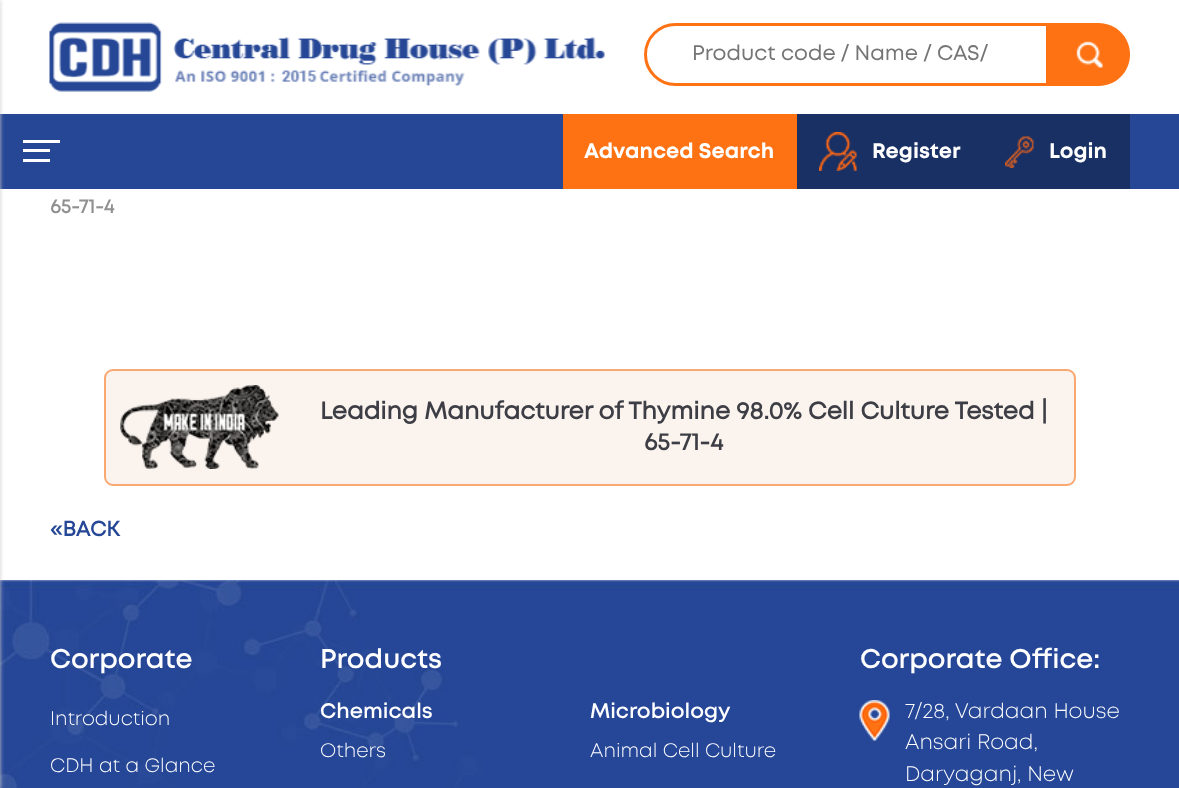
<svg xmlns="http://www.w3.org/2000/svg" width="1179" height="788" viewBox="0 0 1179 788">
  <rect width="100%" height="100%" fill="rgb(255,255,255)"/>
  <image x="49" y="22" width="556" height="70" href="pic1.png"/>
  <path d="M675.5 24.5H1047.5V84.5H675.5C659 84.5 645.5 71 645.5 54.5C645.5 38 659 24.5 675.5 24.5Z" fill="none" stroke="rgb(255,114,20)" stroke-width="3"/>
  <text x="692" y="60" font-family="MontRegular" font-size="21" fill="rgb(117,117,117)">Product code / Name / CAS/</text>
  <path d="M1049 23H1098.5C1116 23 1130 37 1130 54.5C1130 72 1116 86 1098.5 86H1049Z" fill="rgb(255,114,20)"/>
  <image x="1076" y="41" width="27" height="27" href="pic2.png"/>
  <rect x="0" y="114" width="1179" height="75" fill="rgb(38,71,150)"/>
  <image x="0" y="580" width="1179" height="208" href="pic6.png"/>
  <rect x="-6" y="0" width="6" height="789" fill="rgb(204,204,204)" filter="blur(2px)"/>
  <rect x="23" y="149" width="27" height="3" fill="rgb(255,255,255)"/>
  <rect x="23" y="140" width="37" height="3" fill="rgb(255,255,255)"/>
  <rect x="23" y="159" width="27" height="3" fill="rgb(255,255,255)"/>
  <rect x="563" y="114" width="234" height="75" fill="rgb(255,114,20)"/>
  <text x="584" y="158" font-family="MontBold" font-size="21" font-weight="bold" fill="rgb(255,255,255)">Advanced Search</text>
  <rect x="797" y="114" width="333" height="75" fill="rgb(25,48,101)"/>
  <image x="819" y="132" width="38" height="39" href="pic3.png"/>
  <text x="872" y="158" font-family="MontBold" font-size="21" font-weight="bold" fill="rgb(255,255,255)">Register</text>
  <image x="1005" y="136" width="29" height="32" href="pic4.png"/>
  <text x="1049" y="158" font-family="MontBold" font-size="21" font-weight="bold" fill="rgb(255,255,255)">Login</text>
  <text x="50" y="213" font-family="MontRegular" font-size="19.5" font-weight="bold" fill="rgb(145,145,145)">65-71-4</text>
  <rect x="105" y="370" width="970" height="115" rx="8" fill="rgb(251,243,238)" stroke="rgb(250,168,113)" stroke-width="2"/>
  <image x="120" y="385" width="159" height="84" href="pic5.png"/>
  <g font-family="MontRegular" font-size="24" font-weight="bold" fill="rgb(61,62,69)">
    <text x="320" y="419">Leading Manufacturer of Thymine 98.0% Cell Culture Tested |</text>
    <text x="644" y="450">65-71-4</text>
  </g>
  <text x="50" y="536" font-family="MontRegular" font-size="21" font-weight="bold" fill="rgb(38,71,150)">«BACK</text>
  <text x="50" y="668" font-family="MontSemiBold" font-size="27" font-weight="600" fill="rgb(255,255,255)">Corporate</text>
  <g font-family="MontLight" font-size="19.5" font-weight="300" fill="rgb(255,255,255)">
    <text x="50" y="725">Introduction</text>
    <text x="50" y="772">CDH at a Glance</text>
  </g>
  <text x="320" y="668" font-family="MontSemiBold" font-size="27" font-weight="600" fill="rgb(255,255,255)">Products</text>
  <text x="320" y="718" font-family="MontSemiBold" font-size="21" font-weight="600" fill="rgb(255,255,255)">Chemicals</text>
  <text x="320" y="757" font-family="MontLight" font-size="19.5" font-weight="300" fill="rgb(255,255,255)">Others</text>
  <text x="590" y="718" font-family="MontSemiBold" font-size="21" font-weight="600" fill="rgb(255,255,255)">Microbiology</text>
  <text x="590" y="757" font-family="MontLight" font-size="19.5" font-weight="300" fill="rgb(255,255,255)">Animal Cell Culture</text>
  <text x="860" y="668" font-family="MontSemiBold" font-size="27" font-weight="600" fill="rgb(255,255,255)">Corporate Office:</text>
  <image x="859" y="700" width="31" height="41" href="pic7.png"/>
  <g font-family="MontLight" font-size="21" font-weight="300" fill="rgb(255,255,255)">
    <text>
      <tspan x="905" y="718">7/28, Vardaan House</tspan>
      <tspan x="905" y="749">Ansari Road,</tspan>
      <tspan x="905" y="781">Daryaganj, New</tspan>
    </text>
  </g>
</svg>
